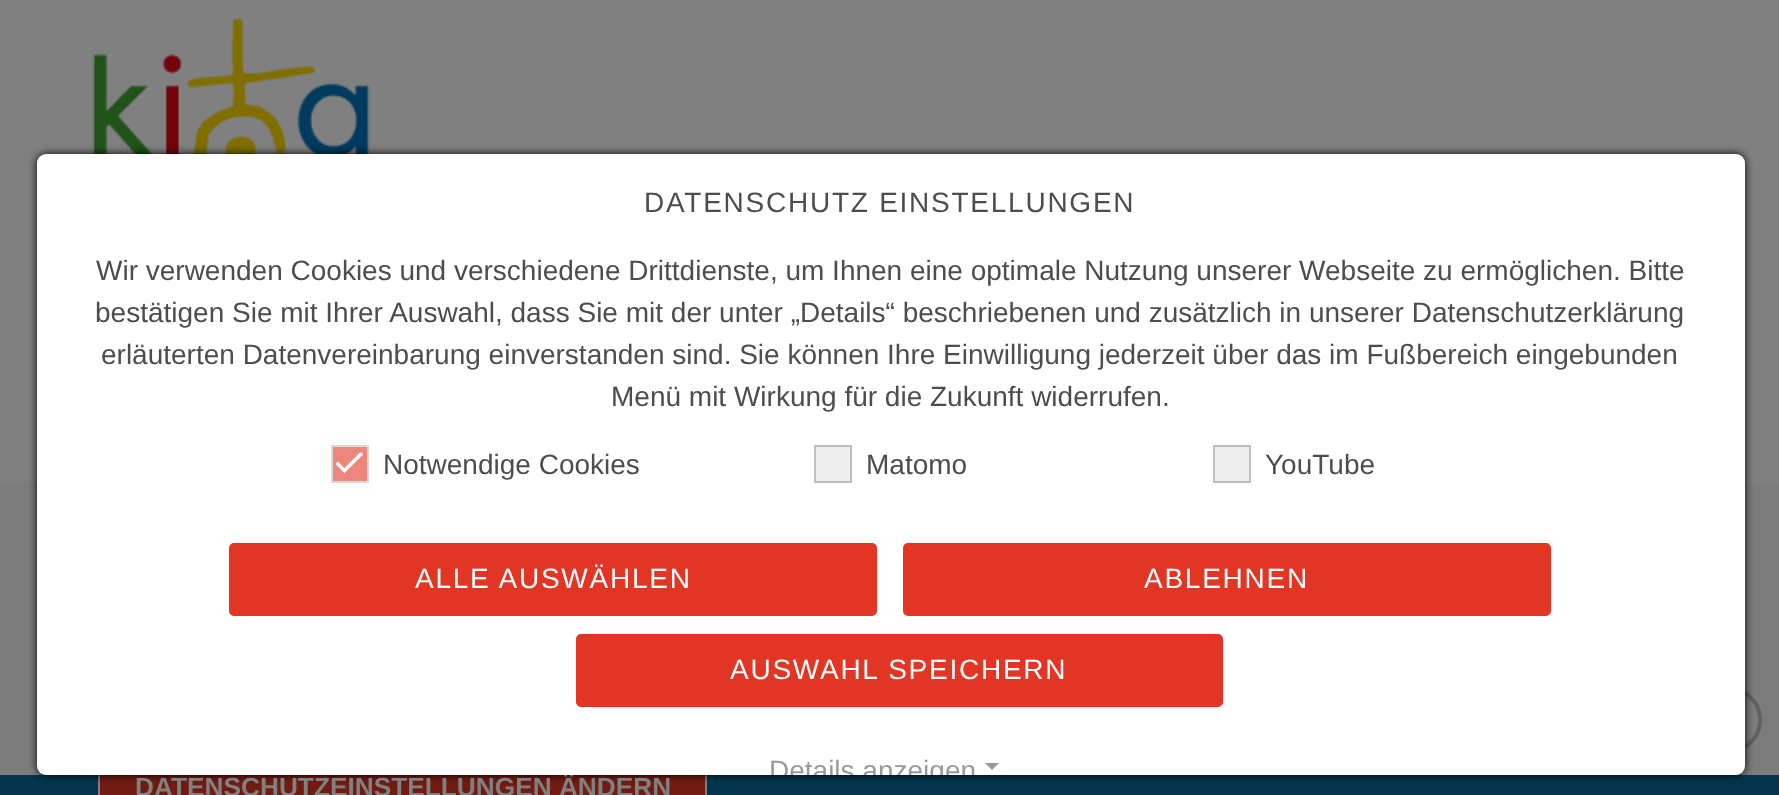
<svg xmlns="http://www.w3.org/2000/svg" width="1779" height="795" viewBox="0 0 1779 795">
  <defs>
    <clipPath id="clip1"><rect x="37" y="154" width="1708" height="621" rx="9"/></clipPath>
  </defs>
  <rect width="100%" height="100%" fill="rgb(124,124,124)"/>
  <rect x="0" y="0" width="1779" height="483" fill="rgb(128,128,128)"/>
  <image x="92" y="17" width="278" height="137" href="pic1.png"/>
  <image x="1745" y="690" width="18" height="59" href="pic2.png"/>
  <rect x="0" y="775" width="1779" height="20" fill="rgb(3,54,78)"/>
  <rect x="100" y="775" width="605" height="20" fill="rgb(114,27,18)"/>
  <rect x="99" y="748" width="607" height="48" fill="none" stroke="rgb(128,128,128)" stroke-width="2"/>
  <rect x="37" y="154" width="1708" height="621" rx="9" fill="rgb(0,0,0)" filter="blur(4.5px)"/>
  <text x="135" y="796" font-family="Liberation Sans" font-size="26.25" font-weight="bold" fill="rgb(128,128,128)">DATENSCHUTZEINSTELLUNGEN ÄNDERN</text>
  <rect x="37" y="154" width="1708" height="621" rx="9" fill="rgb(255,255,255)"/>
  <text x="644" y="212" font-family="Liberation Sans" font-size="28" letter-spacing="1.75" fill="rgb(77,77,77)">DATENSCHUTZ EINSTELLUNGEN</text>
  <g font-family="Liberation Sans" font-size="28" fill="rgb(77,77,77)">
    <text x="96" y="280">Wir verwenden Cookies und verschiedene Drittdienste, um Ihnen eine optimale Nutzung unserer Webseite zu ermöglichen. Bitte</text>
    <text x="95" y="322">bestätigen Sie mit Ihrer Auswahl, dass Sie mit der unter „Details“ beschriebenen und zusätzlich in unserer Datenschutzerklärung</text>
    <text x="101" y="364">erläuterten Datenvereinbarung einverstanden sind. Sie können Ihre Einwilligung jederzeit über das im Fußbereich eingebunden</text>
    <text x="611" y="406">Menü mit Wirkung für die Zukunft widerrufen.</text>
  </g>
  <rect x="332" y="446" width="36" height="36" fill="rgb(238,134,124)" stroke="rgb(217,217,217)" stroke-width="2"/>
  <path d="M360.5 452L363 454.5L344.5 473L342 470.5Z" fill="rgb(255,255,255)"/>
  <path d="M338 461.5L346.5 470.5L344.5 473L335.5 464Z" fill="rgb(255,255,255)"/>
  <text x="383" y="474" font-family="Liberation Sans" font-size="28" fill="rgb(77,77,77)">Notwendige Cookies</text>
  <rect x="815" y="446" width="36" height="36" fill="rgb(238,238,238)" stroke="rgb(191,191,191)" stroke-width="2"/>
  <text x="866" y="474" font-family="Liberation Sans" font-size="28" fill="rgb(77,77,77)">Matomo</text>
  <rect x="1214" y="446" width="36" height="36" fill="rgb(238,238,238)" stroke="rgb(191,191,191)" stroke-width="2"/>
  <text x="1265" y="474" font-family="Liberation Sans" font-size="28" fill="rgb(77,77,77)">YouTube</text>
  <rect x="231" y="545" width="644" height="69" rx="3" fill="rgb(227,53,36)" stroke="rgb(227,53,36)" stroke-width="4"/>
  <text x="415" y="588" font-family="Liberation Sans" font-size="28" letter-spacing="1.75" fill="rgb(255,255,255)">ALLE AUSWÄHLEN</text>
  <rect x="905" y="545" width="644" height="69" rx="3" fill="rgb(227,53,36)" stroke="rgb(227,53,36)" stroke-width="4"/>
  <text x="1144" y="588" font-family="Liberation Sans" font-size="28" letter-spacing="1.75" fill="rgb(255,255,255)">ABLEHNEN</text>
  <rect x="578" y="636" width="643" height="69" rx="3" fill="rgb(227,53,36)" stroke="rgb(227,53,36)" stroke-width="4"/>
  <text x="730" y="679" font-family="Liberation Sans" font-size="28" letter-spacing="1.75" fill="rgb(255,255,255)">AUSWAHL SPEICHERN</text>
  <g clip-path="url(#clip1)">
    <text x="769" y="780" font-family="Liberation Sans" font-size="28" fill="rgb(153,153,153)">Details anzeigen</text>
  </g>
  <path d="M985 763H999L992 770Z" fill="rgb(153,153,153)"/>
</svg>
